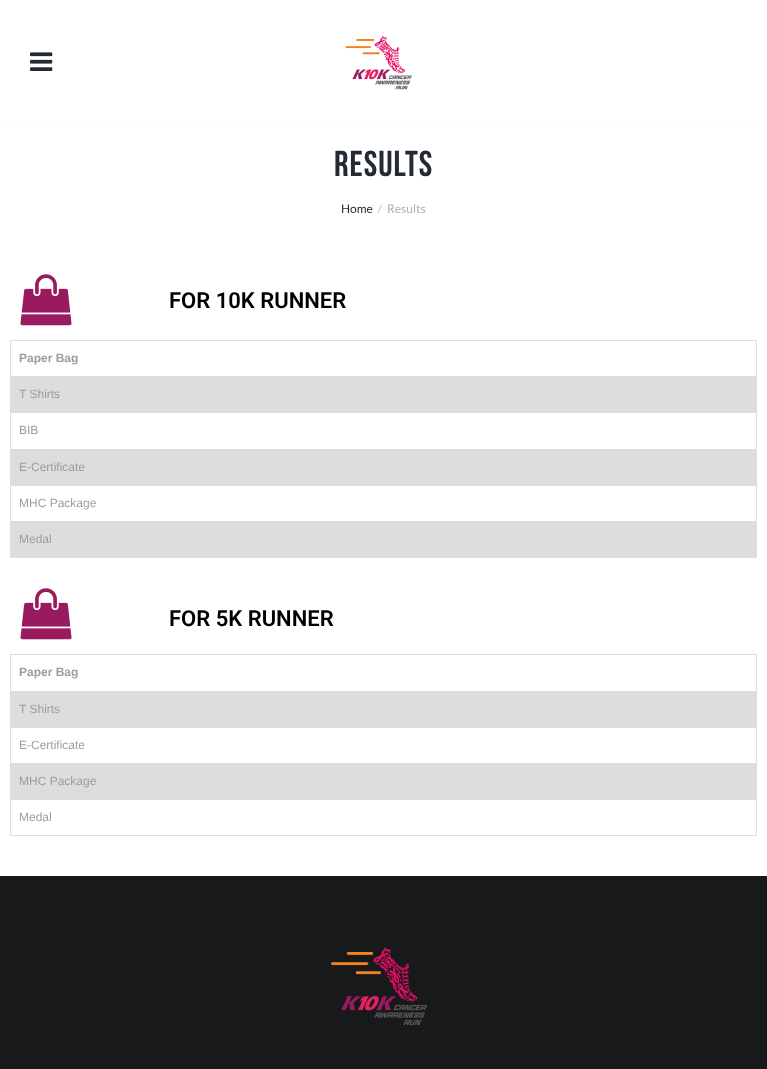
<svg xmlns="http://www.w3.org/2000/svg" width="767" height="1069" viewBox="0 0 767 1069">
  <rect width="100%" height="100%" fill="rgb(255,255,255)"/>
  <image x="30" y="52" width="23" height="19" href="pic1.png"/>
  <image x="345" y="36" width="67" height="54" href="pic2.png"/>
  <rect x="0" y="125" width="767" height="1" fill="rgb(252,252,252)"/>
  <text x="334" y="176" font-family="Bebas Neue" font-size="36" font-weight="bold" letter-spacing="1" fill="rgb(35,42,52)">Results</text>
  <text x="341" y="213" font-family="Lato" font-size="12" fill="rgb(35,42,52)">Home</text>
  <text x="378" y="212" font-family="Lato" font-size="10" fill="rgb(172,180,182)">/</text>
  <text x="387" y="213" font-family="Lato" font-size="12" fill="rgb(172,180,182)">Results</text>
  <image x="20" y="274" width="52" height="52" href="pic3.png"/>
  <text x="169" y="308" font-family="Roboto" font-size="22" font-weight="600" fill="rgb(0,0,0)">FOR 10K RUNNER</text>
  <rect x="10" y="340" width="747" height="1" fill="rgb(221,221,221)"/>
  <rect x="10" y="376" width="747" height="1" fill="rgb(221,221,221)"/>
  <rect x="756" y="340" width="1" height="37" fill="rgb(221,221,221)"/>
  <rect x="10" y="412" width="747" height="1" fill="rgb(221,221,221)"/>
  <rect x="10" y="449" width="747" height="1" fill="rgb(221,221,221)"/>
  <rect x="10" y="485" width="747" height="1" fill="rgb(221,221,221)"/>
  <rect x="10" y="521" width="747" height="1" fill="rgb(221,221,221)"/>
  <rect x="10" y="557" width="747" height="1" fill="rgb(221,221,221)"/>
  <rect x="10" y="521" width="1" height="37" fill="rgb(221,221,221)"/>
  <rect x="10" y="485" width="1" height="37" fill="rgb(221,221,221)"/>
  <rect x="10" y="449" width="1" height="37" fill="rgb(221,221,221)"/>
  <rect x="10" y="412" width="1" height="38" fill="rgb(221,221,221)"/>
  <rect x="10" y="376" width="1" height="37" fill="rgb(221,221,221)"/>
  <rect x="10" y="340" width="1" height="37" fill="rgb(221,221,221)"/>
  <text x="19" y="362" font-family="Liberation Sans" font-size="12" font-weight="bold" fill="rgb(156,157,161)">Paper Bag</text>
  <rect x="11" y="377" width="746" height="35" fill="rgb(221,221,221)"/>
  <text x="19" y="398" font-family="Liberation Sans" font-size="12" fill="rgb(156,157,161)">T Shirts</text>
  <rect x="756" y="412" width="1" height="38" fill="rgb(221,221,221)"/>
  <text x="19" y="434" font-family="Liberation Sans" font-size="12" fill="rgb(156,157,161)">BIB</text>
  <rect x="11" y="450" width="746" height="35" fill="rgb(221,221,221)"/>
  <text x="19" y="471" font-family="Liberation Sans" font-size="12" fill="rgb(156,157,161)">E-Certificate</text>
  <rect x="756" y="485" width="1" height="37" fill="rgb(221,221,221)"/>
  <text x="19" y="507" font-family="Liberation Sans" font-size="12" fill="rgb(156,157,161)">MHC Package</text>
  <rect x="11" y="522" width="746" height="35" fill="rgb(221,221,221)"/>
  <text x="19" y="543" font-family="Liberation Sans" font-size="12" fill="rgb(156,157,161)">Medal</text>
  <image x="20" y="588" width="52" height="52" href="pic3.png"/>
  <text x="169" y="626" font-family="Roboto" font-size="22" font-weight="600" fill="rgb(0,0,0)">FOR 5K RUNNER</text>
  <rect x="10" y="654" width="747" height="1" fill="rgb(221,221,221)"/>
  <rect x="10" y="691" width="747" height="1" fill="rgb(221,221,221)"/>
  <rect x="756" y="654" width="1" height="38" fill="rgb(221,221,221)"/>
  <rect x="10" y="727" width="747" height="1" fill="rgb(221,221,221)"/>
  <rect x="10" y="763" width="747" height="1" fill="rgb(221,221,221)"/>
  <rect x="10" y="799" width="747" height="1" fill="rgb(221,221,221)"/>
  <rect x="756" y="799" width="1" height="37" fill="rgb(221,221,221)"/>
  <rect x="10" y="835" width="747" height="1" fill="rgb(221,221,221)"/>
  <rect x="10" y="799" width="1" height="37" fill="rgb(221,221,221)"/>
  <rect x="10" y="763" width="1" height="37" fill="rgb(221,221,221)"/>
  <rect x="10" y="727" width="1" height="37" fill="rgb(221,221,221)"/>
  <rect x="10" y="691" width="1" height="37" fill="rgb(221,221,221)"/>
  <rect x="10" y="654" width="1" height="38" fill="rgb(221,221,221)"/>
  <text x="19" y="676" font-family="Liberation Sans" font-size="12" font-weight="bold" fill="rgb(156,157,161)">Paper Bag</text>
  <rect x="11" y="692" width="746" height="35" fill="rgb(221,221,221)"/>
  <text x="19" y="713" font-family="Liberation Sans" font-size="12" fill="rgb(156,157,161)">T Shirts</text>
  <rect x="756" y="727" width="1" height="37" fill="rgb(221,221,221)"/>
  <text x="19" y="749" font-family="Liberation Sans" font-size="12" fill="rgb(156,157,161)">E-Certificate</text>
  <rect x="11" y="764" width="746" height="35" fill="rgb(221,221,221)"/>
  <g font-family="Liberation Sans" font-size="12" fill="rgb(156,157,161)">
    <text x="19" y="785">MHC Package</text>
    <text x="19" y="821">Medal</text>
  </g>
  <rect x="0" y="876" width="767" height="193" fill="rgb(24,25,27)"/>
  <image x="331" y="948" width="96" height="77" href="pic4.png"/>
</svg>
